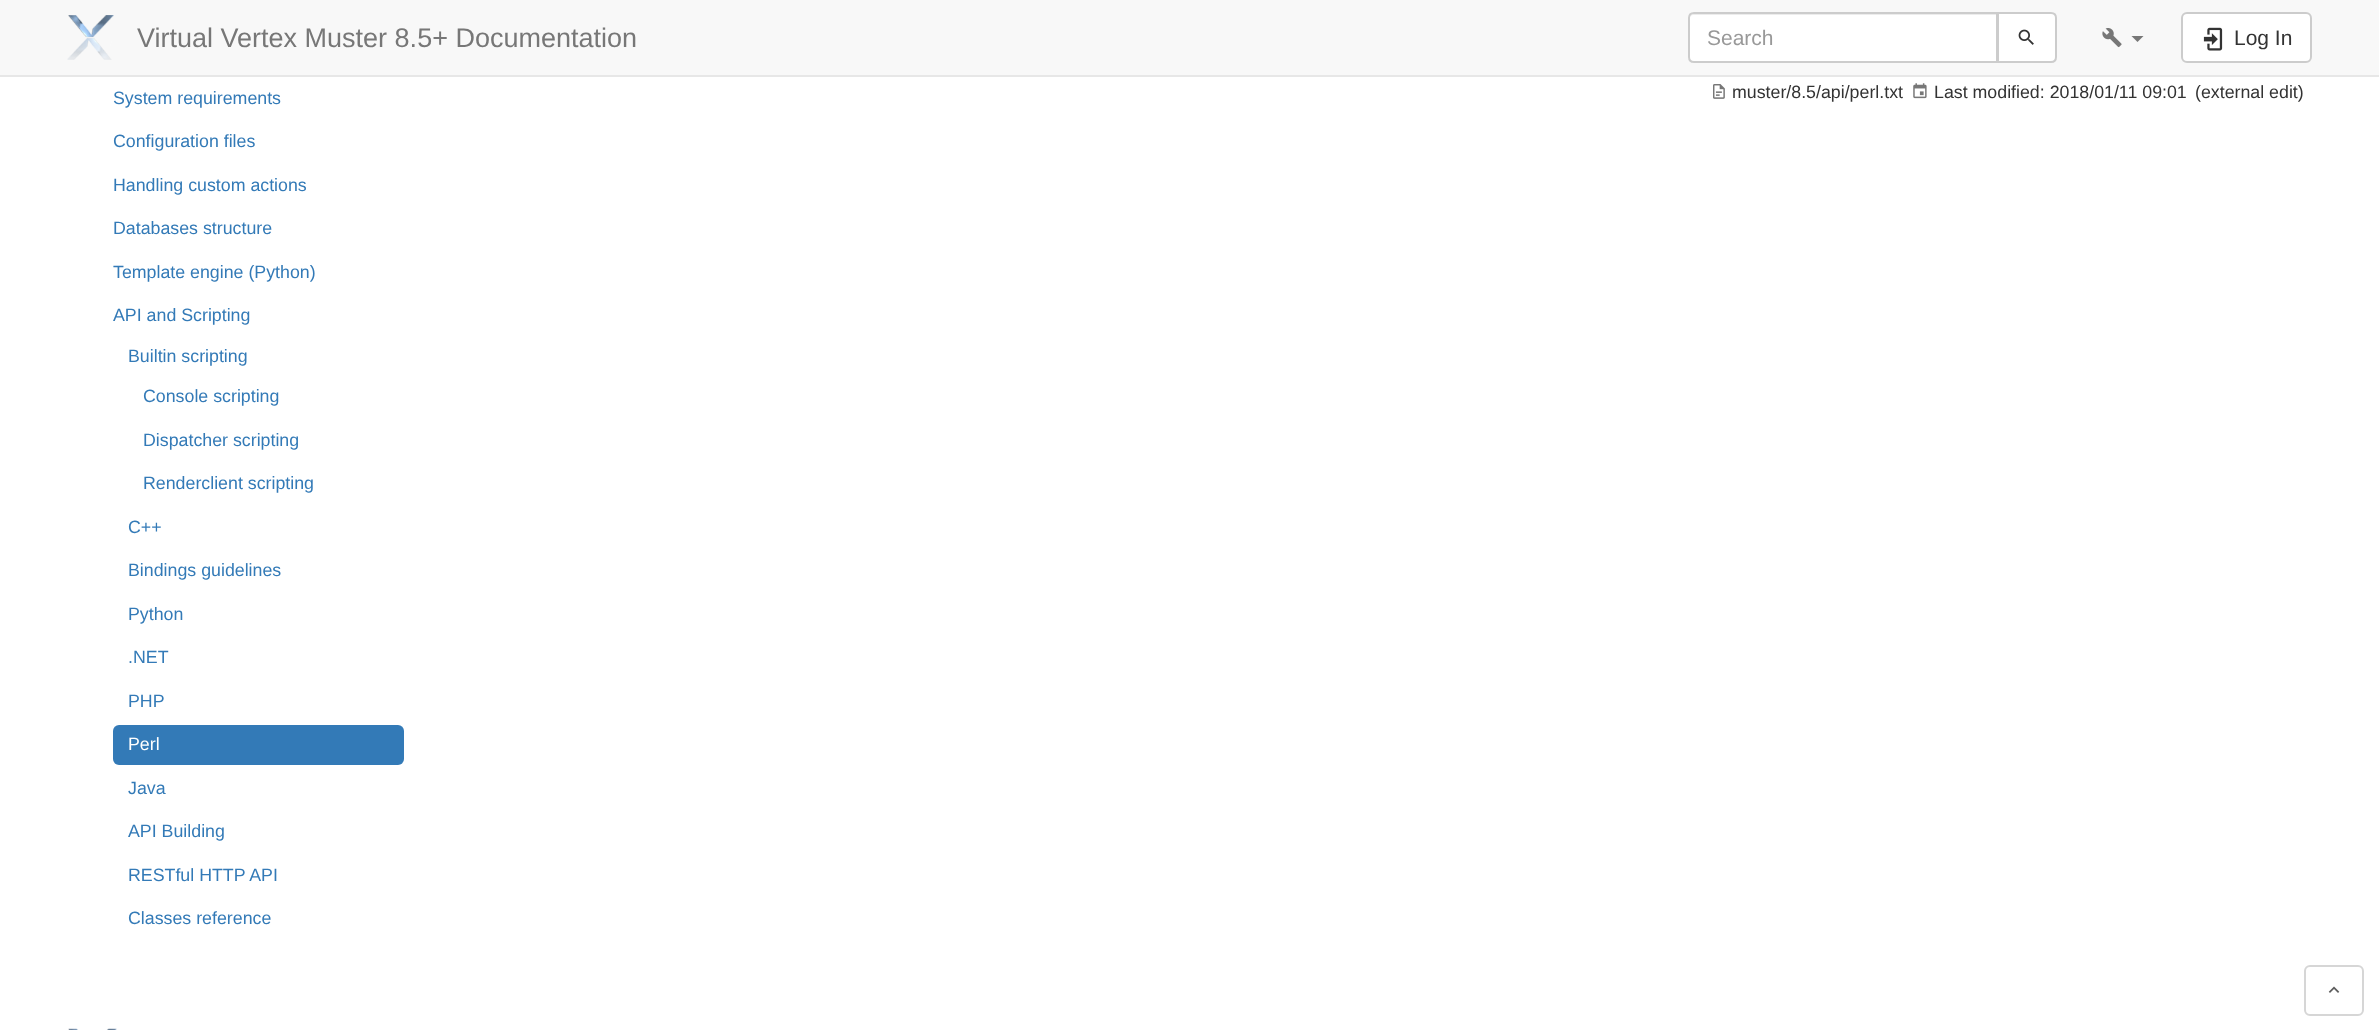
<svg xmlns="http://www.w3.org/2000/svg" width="2379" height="1030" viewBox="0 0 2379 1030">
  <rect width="100%" height="100%" fill="rgb(255,255,255)"/>
  <rect x="0" y="0" width="2379" height="75" fill="rgb(248,248,248)"/>
  <rect x="0" y="75" width="2379" height="2" fill="rgb(231,231,231)"/>
  <image x="67" y="15" width="47" height="45" href="pic1.png"/>
  <text x="137" y="47" font-family="Liberation Sans" font-size="27" fill="rgb(119,119,119)">Virtual Vertex Muster 8.5+ Documentation</text>
  <path d="M1694 12H1998V63H1694C1690.5 63 1688 60.5 1688 57V18C1688 14.5 1690.5 12 1694 12Z" fill="rgb(255,255,255)"/>
  <path d="M1694 15H1996V62H1997V14H1694C1691 14 1689 17 1689 20C1689 17 1691 15 1694 15Z" fill="rgb(236,236,236)"/>
  <path d="M1694 13H1997V62H1694C1691 62 1689 60 1689 57V18C1689 15 1691 13 1694 13Z" fill="none" stroke="rgb(204,204,204)" stroke-width="2"/>
  <text x="1707" y="45" font-family="Liberation Sans" font-size="21" fill="rgb(153,153,153)">Search</text>
  <path d="M1998 13H2051C2054 13 2056 15 2056 18V57C2056 60 2054 62 2051 62H1998Z" fill="rgb(255,255,255)" stroke="rgb(204,204,204)" stroke-width="2"/>
  <image x="2018" y="29" width="16" height="16" href="pic2.png"/>
  <image x="2102" y="28" width="20" height="20" href="pic3.png"/>
  <path d="M2131.5 36H2143.5L2137.5 42Z" fill="rgb(119,119,119)"/>
  <rect x="2182" y="13" width="129" height="49" rx="5" fill="rgb(255,255,255)" stroke="rgb(204,204,204)" stroke-width="2"/>
  <image x="2203" y="27" width="20" height="24" href="pic4.png"/>
  <text x="2234" y="45" font-family="Liberation Sans" font-size="21" fill="rgb(51,51,51)">Log In</text>
  <g font-family="Liberation Sans" font-size="17.8" fill="rgb(51,122,183)">
    <text x="113" y="104">System requirements</text>
    <text x="113" y="147">Configuration files</text>
    <text x="113" y="191">Handling custom actions</text>
    <text x="113" y="234">Databases structure</text>
    <text x="113" y="278">Template engine (Python)</text>
    <text x="113" y="321">API and Scripting</text>
    <text x="128" y="362">Builtin scripting</text>
    <text x="143" y="402">Console scripting</text>
    <text x="143" y="446">Dispatcher scripting</text>
    <text x="143" y="489">Renderclient scripting</text>
    <text x="128" y="533">C++</text>
    <text x="128" y="576">Bindings guidelines</text>
    <text x="128" y="620">Python</text>
    <text x="128" y="663">.NET</text>
    <text x="128" y="707">PHP</text>
  </g>
  <rect x="113" y="725" width="291" height="40" rx="6" fill="rgb(51,122,183)"/>
  <text x="128" y="750" font-family="Liberation Sans" font-size="17.8" fill="rgb(255,255,255)">Perl</text>
  <g font-family="Liberation Sans" font-size="17.8" fill="rgb(51,122,183)">
    <text x="128" y="794">Java</text>
    <text x="128" y="837">API Building</text>
    <text x="128" y="881">RESTful HTTP API</text>
    <text x="128" y="924">Classes reference</text>
  </g>
  <image x="1713" y="84" width="12" height="15" href="pic5.png"/>
  <text x="1732" y="98" font-family="Liberation Sans" font-size="17.8" fill="rgb(51,51,51)">muster/8.5/api/perl.txt</text>
  <image x="1913" y="83" width="14" height="16" href="pic6.png"/>
  <g font-family="Liberation Sans" font-size="17.8" fill="rgb(51,51,51)">
    <text x="1934" y="98">Last modified: 2018/01/11 09:01</text>
    <text x="2195" y="98">(external edit)</text>
  </g>
  <rect x="2305" y="966" width="58" height="49" rx="5" fill="none" stroke="rgb(214,214,214)" stroke-width="2"/>
  <image x="2328" y="986" width="12" height="7" href="pic7.png"/>
  <image x="68" y="1028" width="49" height="2" href="pic8.png"/>
</svg>
